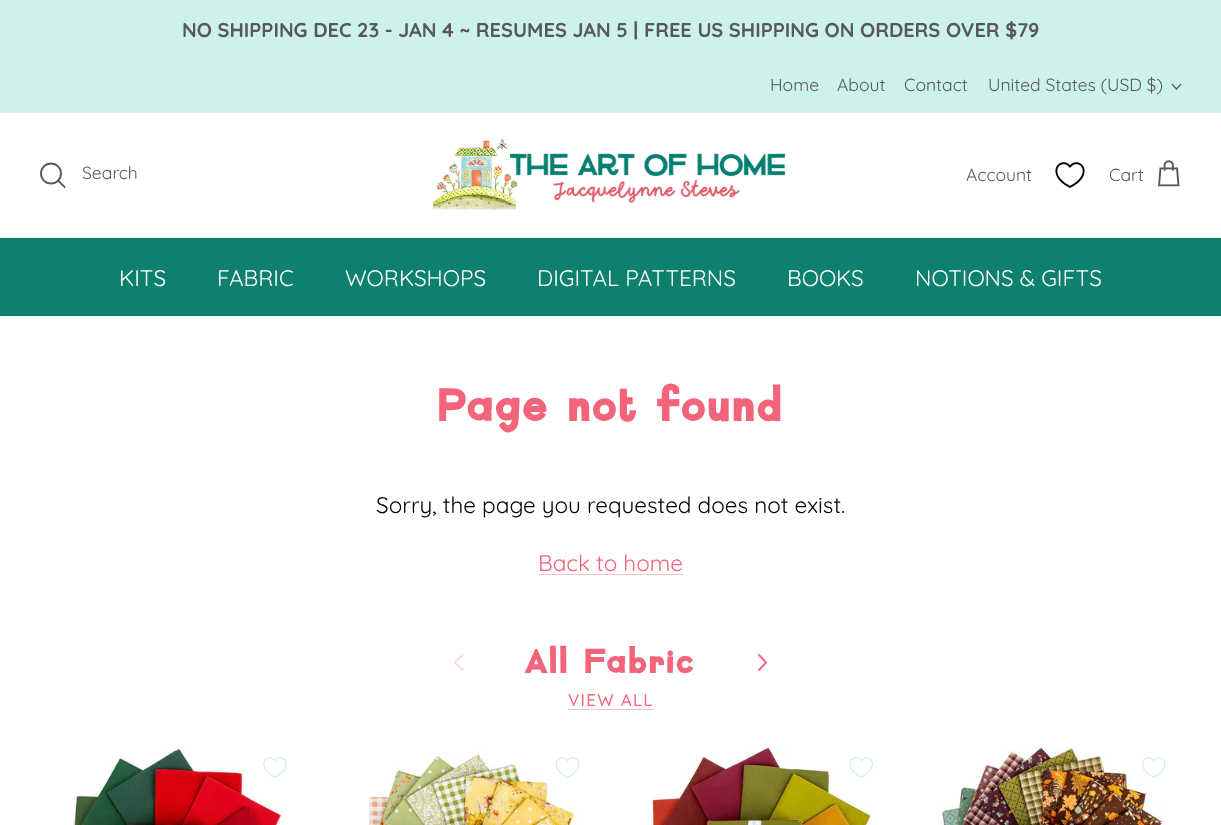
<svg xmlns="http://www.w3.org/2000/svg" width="1221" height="825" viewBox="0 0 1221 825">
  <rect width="100%" height="100%" fill="rgb(255,255,255)"/>
  <rect x="0" y="0" width="1221" height="113" fill="rgb(205,241,235)"/>
  <text x="182" y="37" font-family="Quicksand" font-size="20" font-weight="bold" fill="rgb(88,88,88)">NO SHIPPING DEC 23 - JAN 4 ~ RESUMES JAN 5 | FREE US SHIPPING ON ORDERS OVER $79</text>
  <g font-family="Quicksand" font-size="17.5" fill="rgb(88,88,88)">
    <text x="770" y="91">Home</text>
    <text x="837" y="91">About</text>
    <text x="904" y="91">Contact</text>
    <text x="988" y="91">United States (USD $)</text>
  </g>
  <path d="M1181 84L1176.5 89L1172 84" fill="none" stroke="rgb(88,88,88)" stroke-width="1.2"/>
  <circle cx="51" cy="173.5" r="10" fill="none" stroke="rgb(88,88,88)" stroke-width="1.9"/>
  <text x="82" y="179" font-family="Quicksand" font-size="17.5" fill="rgb(88,88,88)">Search</text>
  <path d="M58.5 181L64.5 187" fill="none" stroke="rgb(88,88,88)" stroke-width="1.9" stroke-linecap="square"/>
  <image x="433" y="138" width="353" height="72" href="pic1.png"/>
  <text x="966" y="181" font-family="Quicksand" font-size="17.5" fill="rgb(88,88,88)">Account</text>
  <image x="1055" y="162" width="30" height="26" href="pic2.png"/>
  <text x="1109" y="181" font-family="Quicksand" font-size="17.5" fill="rgb(88,88,88)">Cart</text>
  <image x="1158" y="160" width="22" height="27" href="pic3.png"/>
  <rect x="0" y="238" width="1221" height="78" fill="rgb(13,129,110)"/>
  <g font-family="Quicksand" font-size="22.5" fill="rgb(255,255,255)">
    <text x="119" y="286">KITS</text>
    <text x="217" y="286">FABRIC</text>
    <text x="345" y="286">WORKSHOPS</text>
    <text x="537" y="286">DIGITAL PATTERNS</text>
    <text x="787" y="286">BOOKS</text>
    <text x="915" y="286">NOTIONS &amp; GIFTS</text>
  </g>
  <text x="437" y="421" font-family="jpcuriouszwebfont" font-size="45" font-weight="bold" letter-spacing="2.5" fill="rgb(242,100,121)">Page not found</text>
  <text x="376" y="513" font-family="Quicksand" font-size="22.5" fill="rgb(0,0,0)">Sorry, the page you requested does not exist.</text>
  <text x="538" y="571" font-family="Quicksand" font-size="22.5" fill="rgb(242,100,121)">Back to home</text>
  <rect x="539" y="574" width="144" height="1" fill="rgb(250,193,201)"/>
  <path d="M462.5 670L455 662.5L462.5 655" fill="none" stroke="rgb(252,216,222)" stroke-width="1.9" stroke-linecap="round" stroke-linejoin="round"/>
  <text x="525" y="673" font-family="jpcuriouszwebfont" font-size="33.25" font-weight="bold" letter-spacing="2.5" fill="rgb(242,100,121)">All Fabric</text>
  <path d="M759 670L766 662.5L759 655" fill="none" stroke="rgb(242,100,121)" stroke-width="1.9" stroke-linecap="round" stroke-linejoin="round"/>
  <text x="568" y="706" font-family="Quicksand" font-size="17" font-weight="500" letter-spacing="1.25" fill="rgb(242,100,121)">VIEW ALL</text>
  <rect x="568" y="709" width="86" height="1" fill="rgb(250,193,201)"/>
  <image x="72" y="747" width="211" height="78" href="pic4.png"/>
  <image x="263" y="757" width="24" height="21" href="pic5.png"/>
  <image x="368" y="750" width="209" height="75" href="pic6.png"/>
  <image x="555" y="757" width="25" height="21" href="pic7.png"/>
  <image x="650" y="746" width="221" height="79" href="pic8.png"/>
  <image x="849" y="757" width="24" height="21" href="pic9.png"/>
  <image x="941" y="744" width="222" height="81" href="pic10.png"/>
  <image x="1142" y="757" width="24" height="21" href="pic11.png"/>
</svg>
